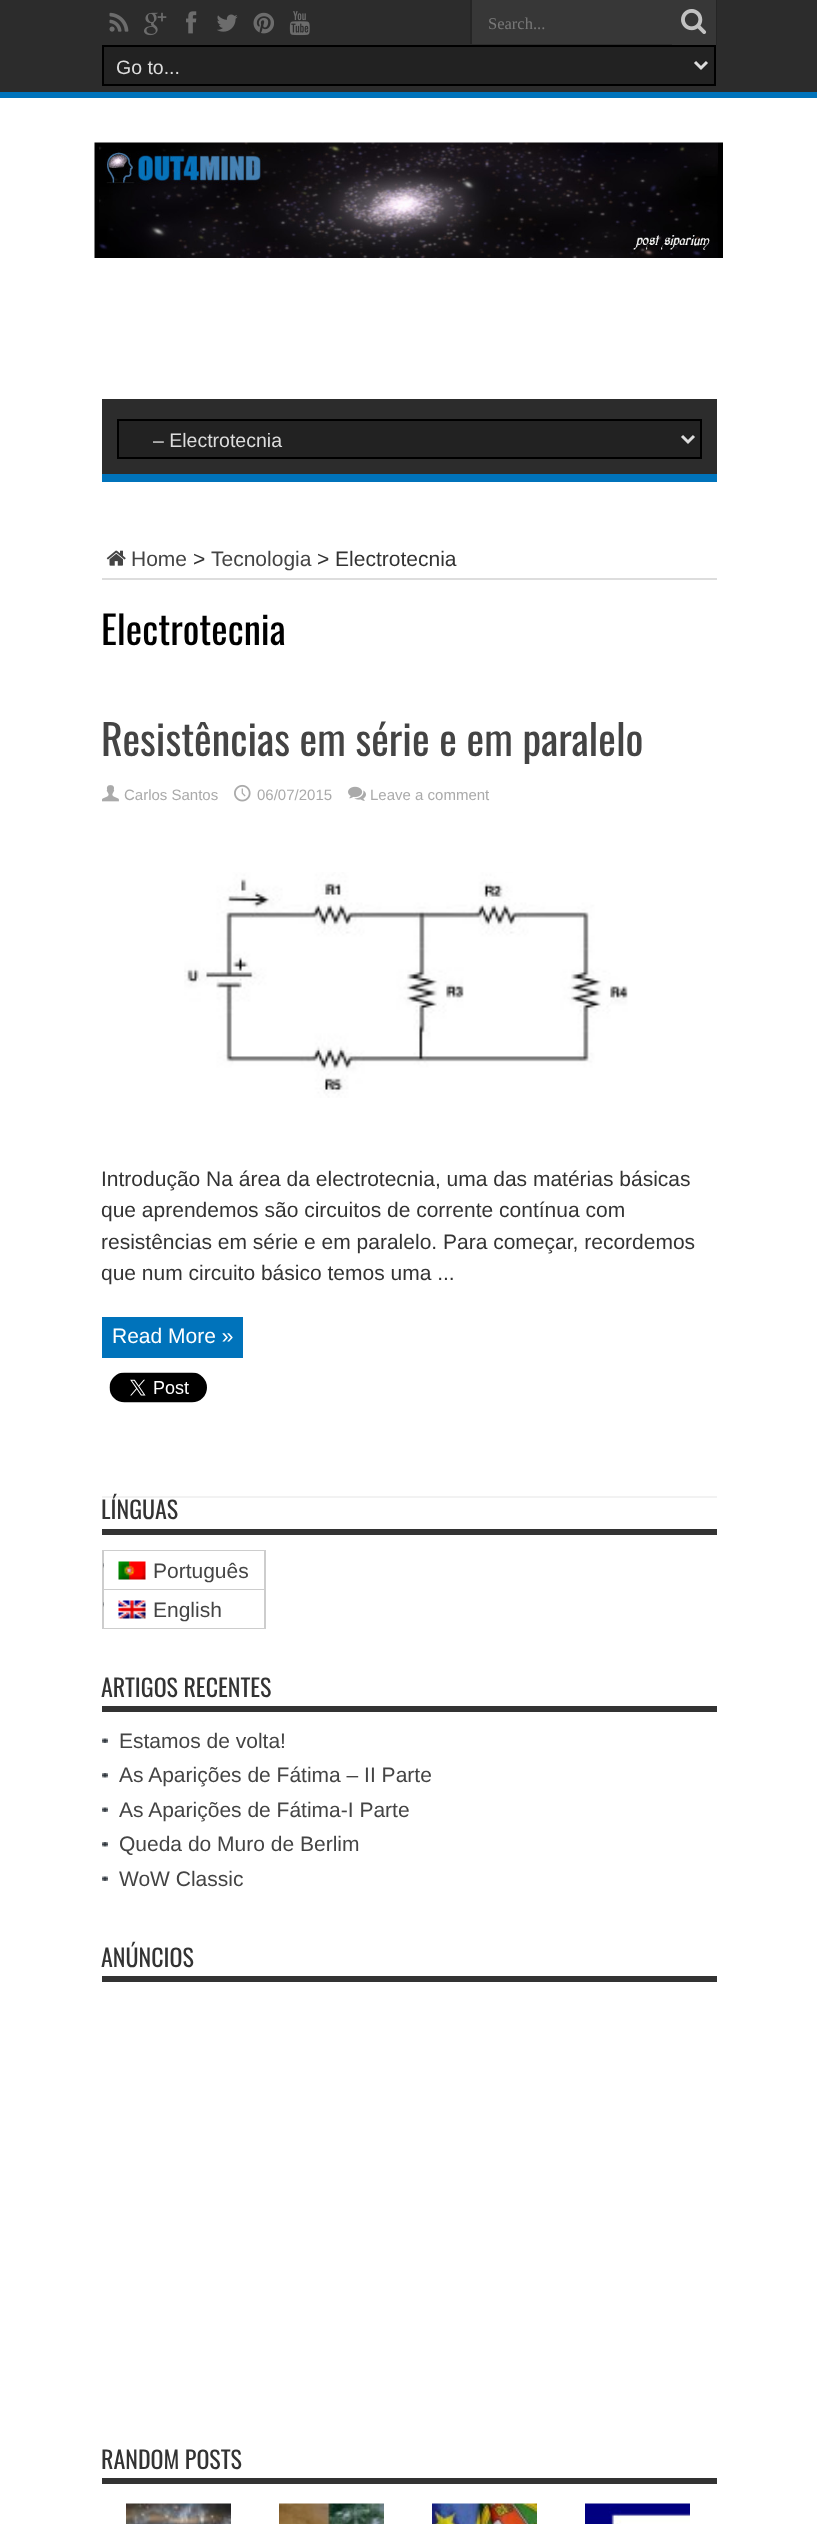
<svg xmlns="http://www.w3.org/2000/svg" width="817" height="2524" viewBox="0 0 817 2524">
  <rect width="100%" height="100%" fill="rgb(255,255,255)"/>
  <rect x="0" y="0" width="817" height="92" fill="rgb(44,44,44)"/>
  <rect x="0" y="92" width="817" height="6" fill="rgb(0,115,187)"/>
  <image x="109" y="12" width="20" height="20" href="pic1.png"/>
  <image x="144" y="12" width="23" height="24" href="pic2.png"/>
  <image x="186" y="11" width="11" height="23" href="pic3.png"/>
  <image x="217" y="14" width="21" height="18" href="pic4.png"/>
  <image x="253" y="12" width="21" height="22" href="pic5.png"/>
  <image x="289" y="11" width="21" height="25" href="pic6.png"/>
  <rect x="472" y="0" width="200" height="44" fill="rgb(55,55,55)"/>
  <rect x="470" y="0" width="2" height="44" fill="rgb(37,37,37)"/>
  <text x="488" y="29" font-family="Liberation Serif" font-size="16.5" fill="rgb(120,120,120)">Search...</text>
  <rect x="672" y="0" width="44" height="45" fill="rgb(55,55,55)"/>
  <rect x="716" y="0" width="1" height="45" fill="rgb(37,37,37)"/>
  <image x="681" y="9" width="26" height="25" href="pic7.png"/>
  <rect x="103" y="46" width="612" height="39" fill="rgb(34,34,34)" stroke="rgb(0,0,0)" stroke-width="2"/>
  <path d="M695 62L701 68L707 62" fill="none" stroke="rgb(221,221,221)" stroke-width="3"/>
  <text x="116" y="74" font-family="Liberation Sans" font-size="19.5" fill="rgb(221,221,221)">Go to...</text>
  <image x="94" y="142" width="629" height="116" href="pic8.png"/>
  <rect x="102" y="399" width="615" height="75" fill="rgb(44,44,44)"/>
  <rect x="102" y="474" width="615" height="8" fill="rgb(0,115,187)"/>
  <rect x="118" y="420" width="583" height="38" fill="rgb(34,34,34)" stroke="rgb(0,0,0)" stroke-width="2"/>
  <path d="M682 436L688 442L694 436" fill="none" stroke="rgb(221,221,221)" stroke-width="3"/>
  <text x="153" y="447" font-family="Liberation Sans" font-size="19.5" fill="rgb(221,221,221)">– Electrotecnia</text>
  <rect x="102" y="578" width="615" height="2" fill="rgb(221,221,221)"/>
  <image x="106" y="550" width="20" height="16" href="pic9.png"/>
  <text x="131" y="566" font-family="Liberation Sans" font-size="21" fill="rgb(68,68,68)">Home</text>
  <text x="193" y="566" font-family="Liberation Sans" font-size="21" fill="rgb(51,51,51)">&gt;</text>
  <text x="211" y="566" font-family="Liberation Sans" font-size="21" fill="rgb(68,68,68)">Tecnologia</text>
  <text x="317" y="566" font-family="Liberation Sans" font-size="21" fill="rgb(51,51,51)">&gt; Electrotecnia</text>
  <text x="101" y="645" font-family="Oswald" font-size="39" fill="rgb(0,0,0)">Electrotecnia</text>
  <rect x="102" y="1496" width="615" height="2" fill="rgb(242,242,242)"/>
  <text x="101" y="756" font-family="Oswald" font-size="42" fill="rgb(68,68,68)">Resistências em série e em paralelo</text>
  <image x="102" y="785" width="17" height="17" href="pic10.png"/>
  <text x="124" y="800" font-family="Liberation Sans" font-size="15" fill="rgb(170,170,170)">Carlos Santos</text>
  <image x="234" y="784" width="17" height="18" href="pic11.png"/>
  <text x="257" y="800" font-family="Liberation Sans" font-size="15" fill="rgb(170,170,170)">06/07/2015</text>
  <image x="348" y="786" width="18" height="15" href="pic12.png"/>
  <text x="370" y="800" font-family="Liberation Sans" font-size="15" fill="rgb(170,170,170)">Leave a comment</text>
  <image x="184" y="872" width="444" height="226" href="pic13.png"/>
  <g font-family="Liberation Sans" font-size="21" fill="rgb(51,51,51)">
    <text>
      <tspan x="101" y="1186">Introdução Na área da electrotecnia, uma das matérias básicas</tspan>
      <tspan x="101" y="1217">que aprendemos são circuitos de corrente contínua com</tspan>
      <tspan x="101" y="1249">resistências em série e em paralelo. Para começar, recordemos</tspan>
      <tspan x="101" y="1280">que num circuito básico temos uma ...</tspan>
    </text>
  </g>
  <rect x="102" y="1317" width="141" height="41" fill="rgb(0,115,187)"/>
  <text x="112" y="1343" font-family="Liberation Sans" font-size="21" fill="rgb(255,255,255)">Read More »</text>
  <image x="109" y="1372" width="98" height="31" href="pic14.png"/>
  <rect x="102" y="1529" width="615" height="6" fill="rgb(51,51,51)"/>
  <text x="101" y="1519" font-family="Oswald" font-size="24" fill="rgb(51,51,51)">LÍNGUAS</text>
  <rect x="102" y="1550" width="164" height="1" fill="rgb(205,205,205)"/>
  <rect x="264" y="1550" width="2" height="79" fill="rgb(205,205,205)"/>
  <rect x="102" y="1550" width="2" height="79" fill="rgb(205,205,205)"/>
  <image x="103" y="1563" width="1" height="5" href="pic15.png"/>
  <rect x="104" y="1589" width="160" height="1" fill="rgb(205,205,205)"/>
  <image x="118" y="1561" width="28" height="19" href="pic16.png"/>
  <text x="153" y="1578" font-family="Liberation Sans" font-size="21" fill="rgb(68,68,68)">Português</text>
  <image x="103" y="1602" width="1" height="5" href="pic15.png"/>
  <rect x="104" y="1628" width="160" height="1" fill="rgb(205,205,205)"/>
  <image x="118" y="1600" width="28" height="19" href="pic17.png"/>
  <text x="153" y="1617" font-family="Liberation Sans" font-size="21" fill="rgb(68,68,68)">English</text>
  <rect x="102" y="1706" width="615" height="6" fill="rgb(51,51,51)"/>
  <text x="101" y="1697" font-family="Oswald" font-size="24" fill="rgb(51,51,51)">ARTIGOS RECENTES</text>
  <image x="102" y="1738" width="6" height="5" href="pic18.png"/>
  <text x="119" y="1748" font-family="Liberation Sans" font-size="21" fill="rgb(68,68,68)">Estamos de volta!</text>
  <image x="102" y="1773" width="6" height="5" href="pic19.png"/>
  <text x="119" y="1782" font-family="Liberation Sans" font-size="21" fill="rgb(68,68,68)">As Aparições de Fátima – II Parte</text>
  <image x="102" y="1807" width="6" height="5" href="pic18.png"/>
  <text x="119" y="1817" font-family="Liberation Sans" font-size="21" fill="rgb(68,68,68)">As Aparições de Fátima-I Parte</text>
  <image x="102" y="1842" width="6" height="5" href="pic19.png"/>
  <text x="119" y="1851" font-family="Liberation Sans" font-size="21" fill="rgb(68,68,68)">Queda do Muro de Berlim</text>
  <image x="102" y="1876" width="6" height="5" href="pic18.png"/>
  <text x="119" y="1886" font-family="Liberation Sans" font-size="21" fill="rgb(68,68,68)">WoW Classic</text>
  <rect x="102" y="1976" width="615" height="6" fill="rgb(51,51,51)"/>
  <text x="101" y="1967" font-family="Oswald" font-size="24" fill="rgb(51,51,51)">ANÚNCIOS</text>
  <rect x="102" y="2478" width="615" height="6" fill="rgb(51,51,51)"/>
  <text x="101" y="2469" font-family="Oswald" font-size="24" fill="rgb(51,51,51)">RANDOM POSTS</text>
  <image x="126" y="2503" width="105" height="21" href="pic20.png"/>
  <image x="279" y="2503" width="105" height="21" href="pic21.png"/>
  <image x="432" y="2503" width="105" height="21" href="pic22.png"/>
  <image x="585" y="2503" width="105" height="21" href="pic23.png"/>
</svg>
